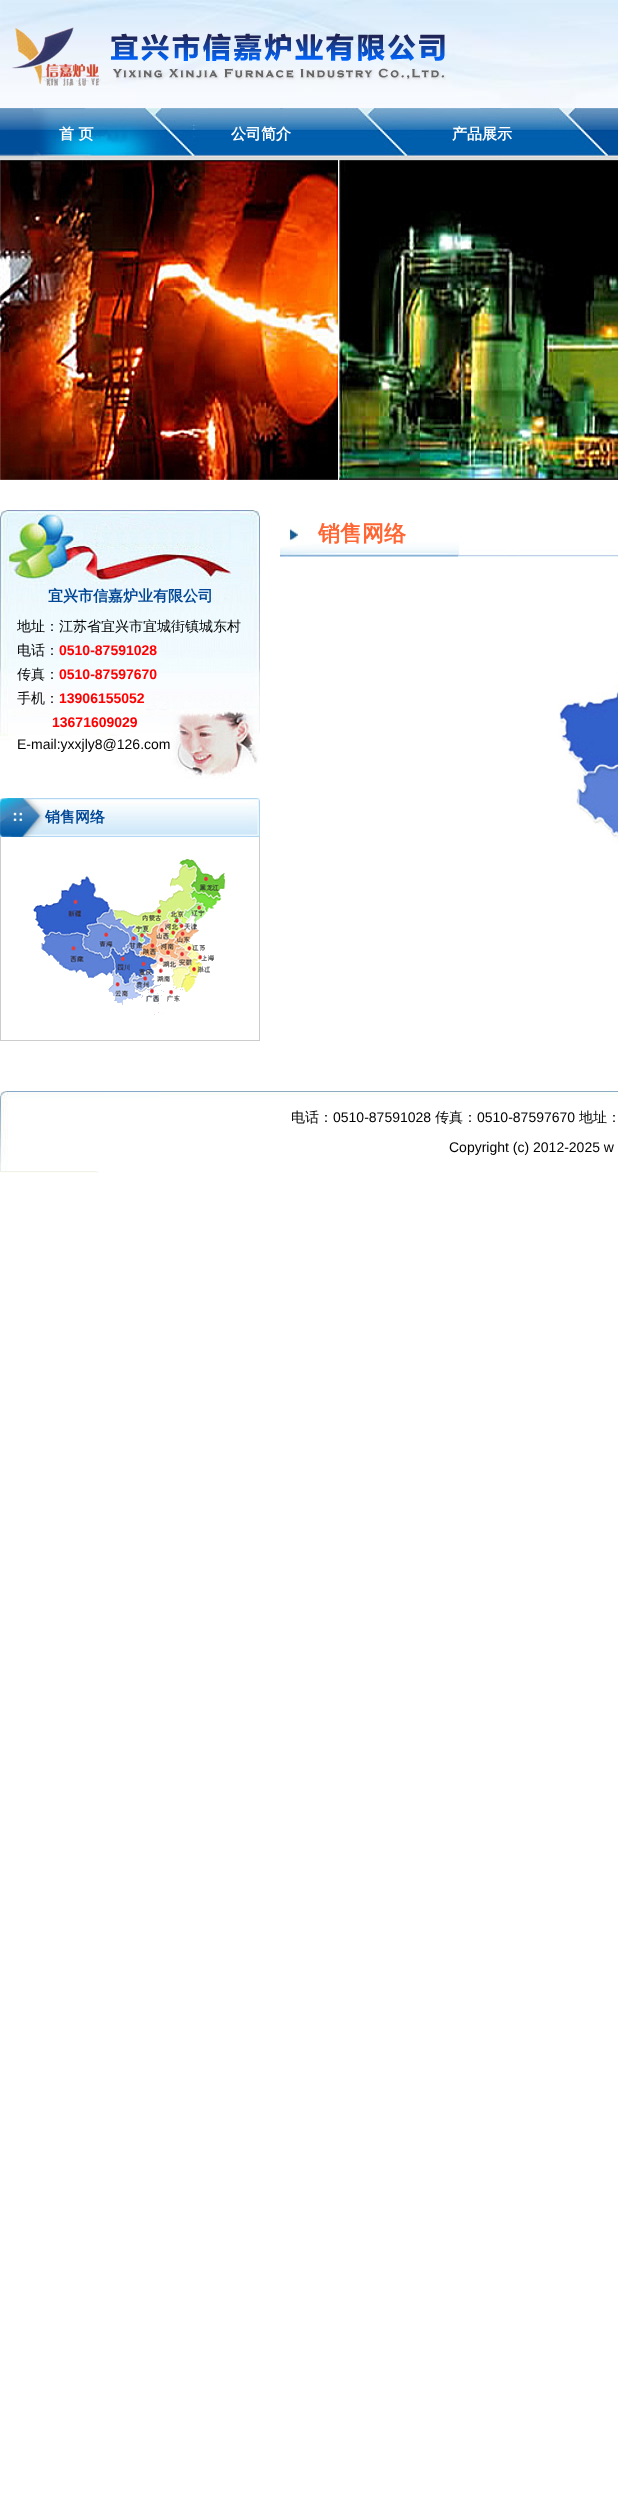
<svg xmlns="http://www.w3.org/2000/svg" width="618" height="2514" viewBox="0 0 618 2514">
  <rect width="100%" height="100%" fill="rgb(255,255,255)"/>
  <image x="0" y="0" width="618" height="108" href="pic1.png"/>
  <image x="12" y="19" width="434" height="67" href="pic2.png"/>
  <image x="0" y="108" width="32" height="52" href="pic3.png"/>
  <image x="32" y="108" width="586" height="52" href="pic4.png"/>
  <g font-family="WenQuanYi Zen Hei" font-size="15" font-weight="bold" fill="rgb(255,255,255)">
    <text x="59" y="139">首 页</text>
    <text x="231" y="139">公司简介</text>
    <text x="452" y="139">产品展示</text>
  </g>
  <image x="0" y="160" width="618" height="320" href="pic5.png"/>
  <image x="280" y="526" width="338" height="31" href="pic6.png"/>
  <text x="318" y="541" font-family="WenQuanYi Zen Hei" font-size="22" font-weight="bold" fill="rgb(255,102,51)">销售网络</text>
  <image x="558" y="672" width="60" height="172" href="pic7.png"/>
  <image x="0" y="510" width="260" height="269" href="pic8.png"/>
  <text x="48" y="601" font-family="WenQuanYi Zen Hei" font-size="15" font-weight="bold" fill="rgb(2,71,149)">宜兴市信嘉炉业有限公司</text>
  <g font-family="WenQuanYi Zen Hei" font-size="14" font-weight="500" fill="rgb(0,0,0)">
    <text>
      <tspan x="17" y="631">地址：江苏省宜兴市宜城街镇城东村</tspan>
      <tspan x="17" y="655">电话：</tspan>
    </text>
  </g>
  <text x="59" y="655" font-family="Liberation Sans" font-size="14" font-weight="bold" fill="rgb(255,0,0)">0510-87591028</text>
  <text x="17" y="679" font-family="WenQuanYi Zen Hei" font-size="14" font-weight="500" fill="rgb(0,0,0)">传真：</text>
  <text x="59" y="679" font-family="Liberation Sans" font-size="14" font-weight="bold" fill="rgb(255,0,0)">0510-87597670</text>
  <text x="17" y="703" font-family="WenQuanYi Zen Hei" font-size="14" font-weight="500" fill="rgb(0,0,0)">手机：</text>
  <g font-family="Liberation Sans" font-size="14" font-weight="bold" fill="rgb(255,0,0)">
    <text x="59" y="703">13906155052</text>
    <text x="52" y="727">13671609029</text>
  </g>
  <text x="17" y="749" font-family="Liberation Sans" font-size="14" fill="rgb(0,0,0)">E-mail:yxxjly8@126.com</text>
  <image x="0" y="798" width="260" height="39" href="pic9.png"/>
  <text x="45" y="822" font-family="WenQuanYi Zen Hei" font-size="15" font-weight="bold" fill="rgb(2,71,149)">销售网络</text>
  <rect x="259" y="837" width="1" height="204" fill="rgb(204,204,204)"/>
  <rect x="0" y="1040" width="260" height="1" fill="rgb(204,204,204)"/>
  <rect x="0" y="837" width="1" height="204" fill="rgb(204,204,204)"/>
  <image x="33" y="859" width="196" height="156" href="pic10.png"/>
  <image x="0" y="1091" width="618" height="82" href="pic11.png"/>
  <text x="291" y="1122" font-family="WenQuanYi Zen Hei" font-size="14" font-weight="500" fill="rgb(0,0,0)">电话：</text>
  <text x="333" y="1122" font-family="Liberation Sans" font-size="14" fill="rgb(0,0,0)">0510-87591028</text>
  <text x="435" y="1122" font-family="WenQuanYi Zen Hei" font-size="14" font-weight="500" fill="rgb(0,0,0)">传真：</text>
  <text x="477" y="1122" font-family="Liberation Sans" font-size="14" fill="rgb(0,0,0)">0510-87597670</text>
  <text x="579" y="1122" font-family="WenQuanYi Zen Hei" font-size="14" font-weight="500" fill="rgb(0,0,0)">地址：</text>
  <text x="449" y="1152" font-family="Liberation Sans" font-size="14" fill="rgb(0,0,0)">Copyright (c) 2012-2025 w</text>
</svg>
